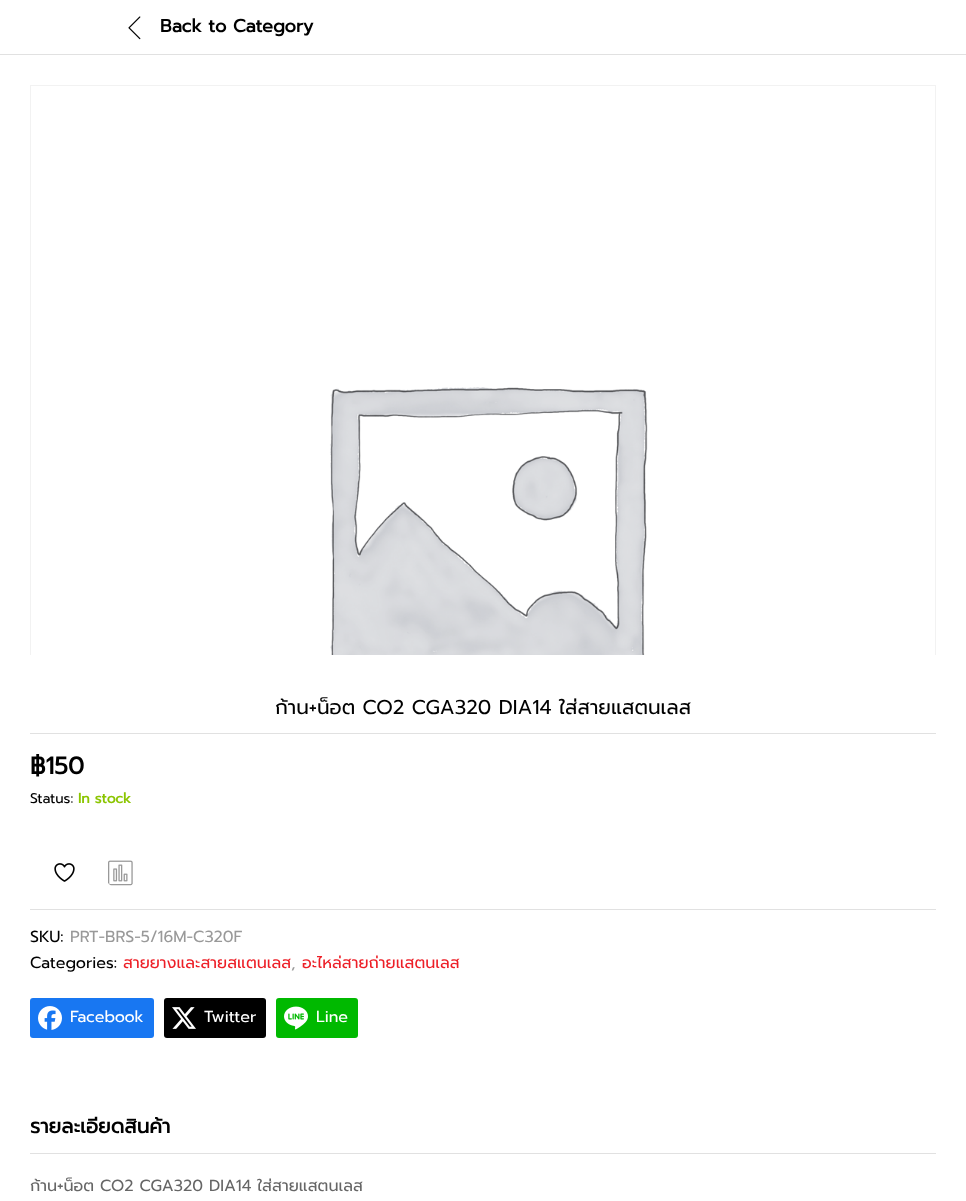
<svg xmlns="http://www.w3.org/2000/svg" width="966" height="1201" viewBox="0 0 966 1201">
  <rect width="100%" height="100%" fill="rgb(255,255,255)"/>
  <rect x="0" y="54" width="966" height="1" fill="rgb(225,225,225)"/>
  <image x="128" y="16" width="13" height="24" href="pic1.png"/>
  <text x="160" y="32" font-family="Prompt" font-size="18" font-weight="bold" fill="rgb(0,0,0)">Back to Category</text>
  <rect x="30.5" y="85.5" width="905" height="569" fill="none" stroke="rgb(242,242,242)"/>
  <image x="31" y="387" width="904" height="268" href="pic2.png"/>
  <rect x="30" y="733" width="906" height="1" fill="rgb(225,225,225)"/>
  <text x="275" y="714" font-family="Prompt" font-size="20" fill="rgb(0,0,0)">ก้าน+น็อต CO2 CGA320 DIA14 ใส่สายแสตนเลส</text>
  <text x="30" y="774" font-family="Prompt" font-size="24" font-weight="bold" fill="rgb(0,0,0)">฿150</text>
  <text x="30" y="803" font-family="Prompt" font-size="14" fill="rgb(0,0,0)">Status:</text>
  <text x="78" y="803" font-family="Prompt" font-size="14" font-weight="bold" fill="rgb(139,197,0)">In stock</text>
  <image x="54" y="863" width="21" height="19" href="pic3.png"/>
  <image x="108" y="860" width="25" height="26" href="pic4.png"/>
  <rect x="30" y="909" width="906" height="1" fill="rgb(225,225,225)"/>
  <text x="30" y="942" font-family="Prompt" font-size="16" fill="rgb(0,0,0)">SKU:</text>
  <text x="70" y="942" font-family="Prompt" font-size="16" fill="rgb(153,153,153)">PRT-BRS-5/16M-C320F</text>
  <text x="30" y="968" font-family="Prompt" font-size="16" fill="rgb(0,0,0)">Categories:</text>
  <text x="123" y="968" font-family="Prompt" font-size="16" fill="rgb(237,31,39)">สายยางและสายสแตนเลส</text>
  <text x="291" y="968" font-family="Prompt" font-size="16" fill="rgb(153,153,153)">,</text>
  <text x="302" y="968" font-family="Prompt" font-size="16" fill="rgb(237,31,39)">อะไหล่สายถ่ายแสตนเลส</text>
  <rect x="30" y="998" width="124" height="40" rx="3" fill="rgb(24,119,242)"/>
  <image x="38" y="1006" width="24" height="24" href="pic5.png"/>
  <text x="70" y="1022" font-family="Prompt" font-size="16" fill="rgb(255,255,255)">Facebook</text>
  <rect x="164" y="998" width="102" height="40" rx="3" fill="rgb(0,0,0)"/>
  <image x="172" y="1007" width="24" height="22" href="pic6.png"/>
  <text x="204" y="1022" font-family="Prompt" font-size="16" fill="rgb(255,255,255)">Twitter</text>
  <rect x="276" y="998" width="82" height="40" rx="3" fill="rgb(0,185,0)"/>
  <image x="284" y="1006" width="24" height="24" href="pic7.png"/>
  <text x="316" y="1022" font-family="Prompt" font-size="16" fill="rgb(255,255,255)">Line</text>
  <rect x="30" y="1153" width="906" height="1" fill="rgb(225,225,225)"/>
  <text x="30" y="1133" font-family="Prompt" font-size="20" font-weight="bold" fill="rgb(0,0,0)">รายละเอียดสินค้า</text>
  <text x="30" y="1191" font-family="Prompt" font-size="16" fill="rgb(102,102,102)">ก้าน+น็อต CO2 CGA320 DIA14 ใส่สายแสตนเลส</text>
</svg>
